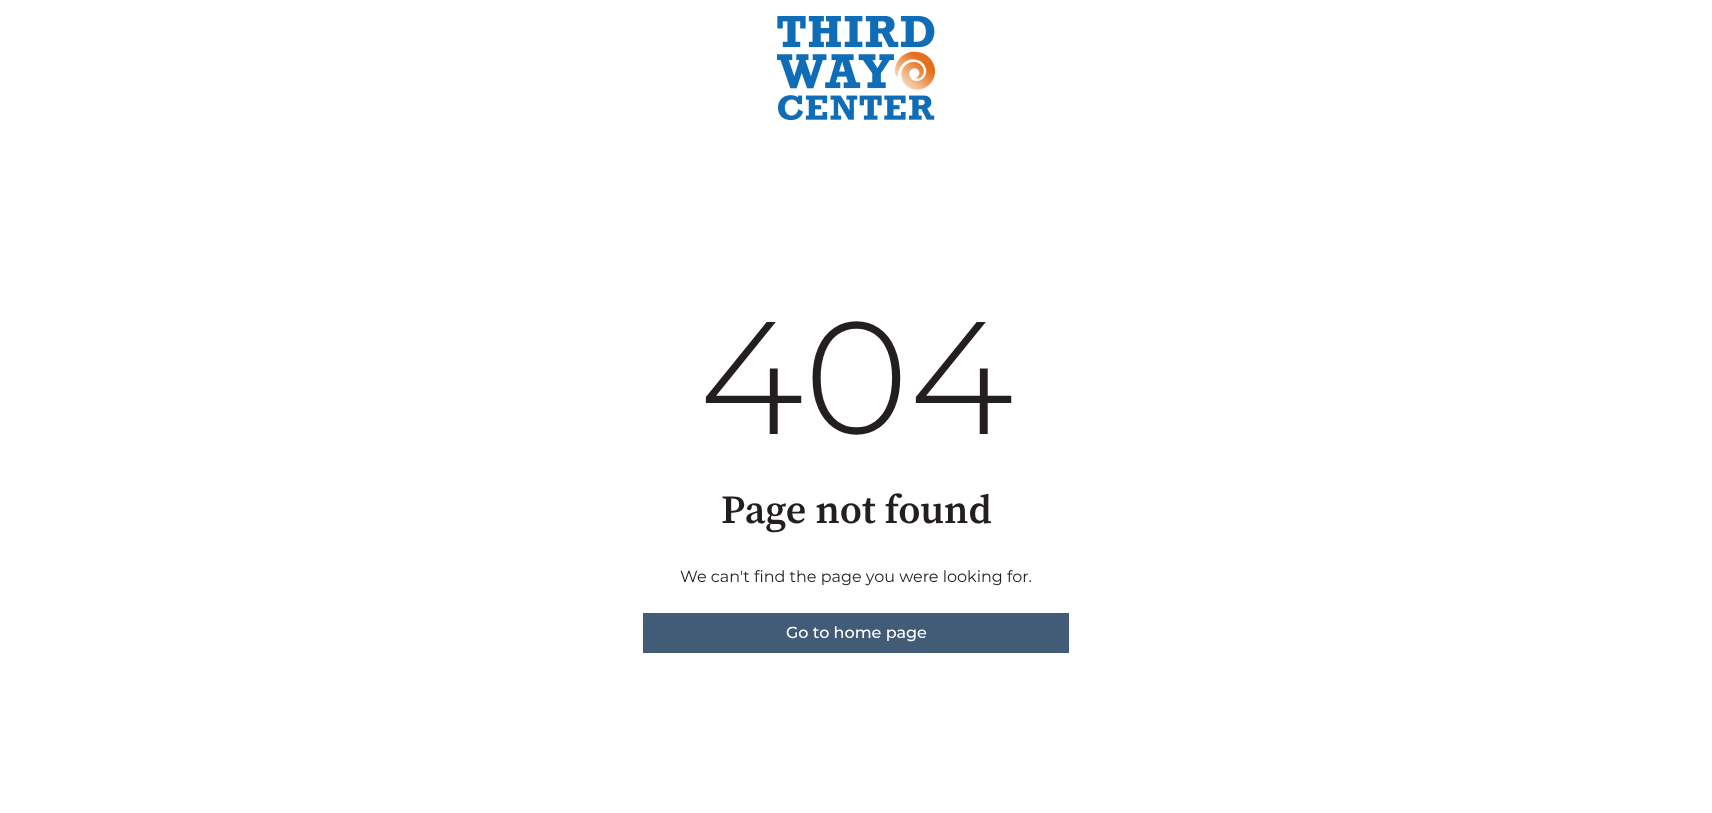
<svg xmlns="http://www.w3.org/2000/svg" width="1712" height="813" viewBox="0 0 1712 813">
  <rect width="100%" height="100%" fill="rgb(255,255,255)"/>
  <image x="777" y="16" width="158" height="104" href="pic1.png"/>
  <text x="699" y="434" font-family="Montserrat" font-size="160" font-weight="300" fill="rgb(35,31,32)">404</text>
  <text x="721" y="523" font-family="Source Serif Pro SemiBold" font-size="40" font-weight="600" fill="rgb(35,31,32)">Page not found</text>
  <text x="680" y="582" font-family="Montserrat" font-size="16" fill="rgb(35,31,32)">We can't find the page you were looking for.</text>
  <rect x="643" y="613" width="426" height="40" fill="rgb(66,91,118)"/>
  <text x="786" y="638" font-family="Montserrat" font-size="16" font-weight="500" fill="rgb(255,255,255)">Go to home page</text>
</svg>
